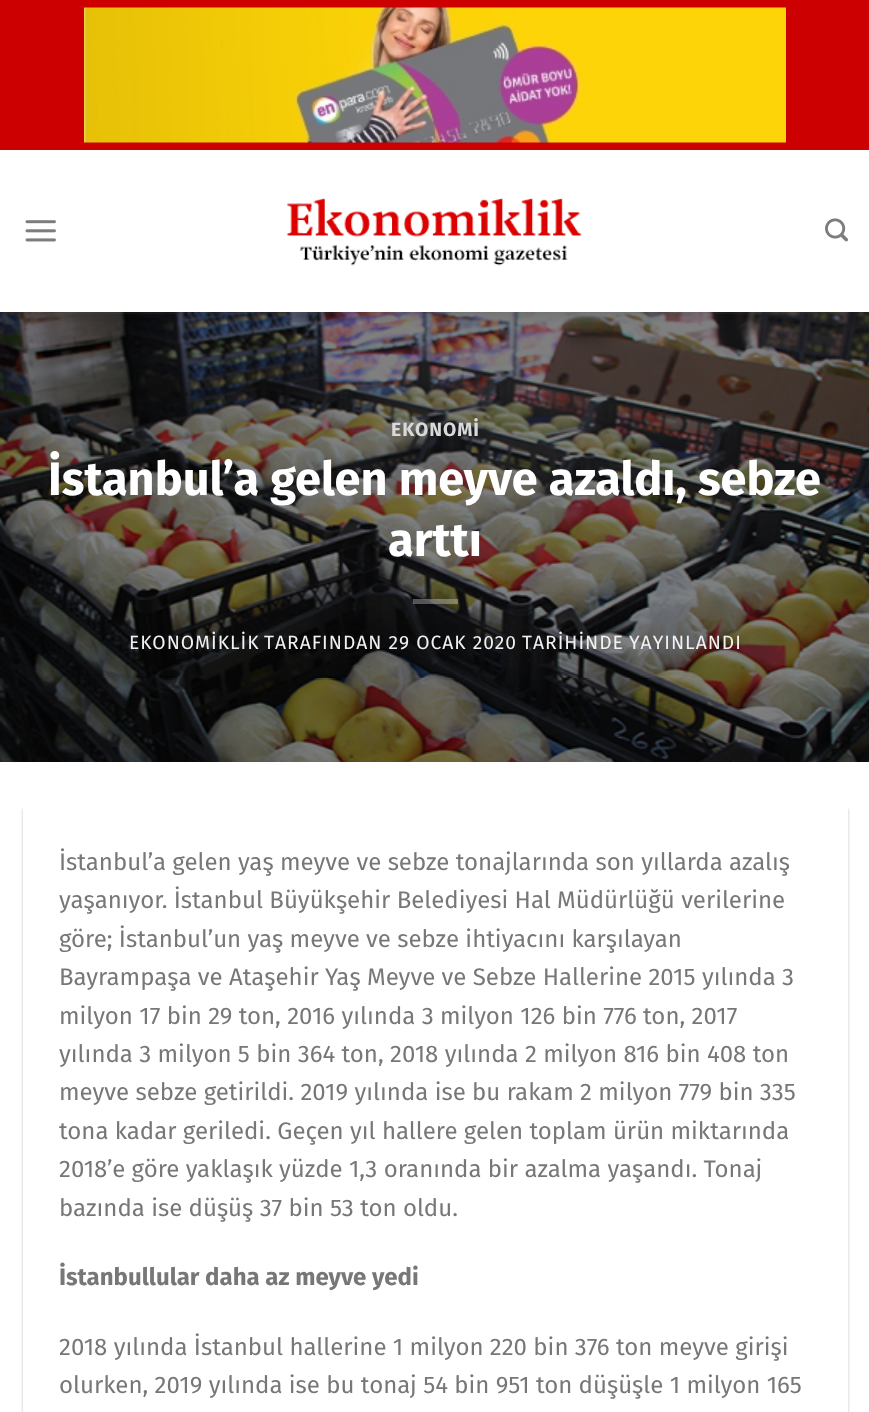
<svg xmlns="http://www.w3.org/2000/svg" width="869" height="1412" viewBox="0 0 869 1412">
  <defs>
    <clipPath id="clip1"><rect x="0" y="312" width="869" height="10"/></clipPath>
  </defs>
  <rect width="100%" height="100%" fill="rgb(255,255,255)"/>
  <image x="0" y="312" width="869" height="450" href="pic5.png"/>
  <g clip-path="url(#clip1)">
    <rect x="2" y="2" width="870" height="312" fill="rgba(0,0,0,0.15)" filter="blur(7.5px)"/>
  </g>
  <rect x="0" y="0" width="869" height="150" fill="rgb(204,0,0)"/>
  <image x="84" y="7" width="702" height="136" href="pic1.png"/>
  <image x="25" y="220" width="31" height="22" href="pic2.png"/>
  <image x="287" y="198" width="295" height="68" href="pic3.png"/>
  <image x="825" y="218" width="23" height="24" href="pic4.png"/>
  <rect x="23" y="312" width="825" height="2" fill="rgba(119,119,119,0.1)"/>
  <text x="391" y="436" font-family="Fira Sans" font-size="19.25" font-weight="bold" letter-spacing="1" fill="rgb(216,217,216)">EKONOMİ</text>
  <g font-family="Fira Sans" font-size="46.9" font-weight="bold" fill="rgb(255,255,255)">
    <text x="48" y="495">İstanbul’a gelen meyve azaldı, sebze</text>
    <text x="388" y="556">arttı</text>
  </g>
  <rect x="413" y="599" width="45" height="5" fill="rgba(255,255,255,0.3)"/>
  <g font-family="Fira Sans" font-size="19.25" letter-spacing="1" fill="rgb(241,241,241)">
    <text x="129" y="649">EKONOMİKLİK</text>
    <text x="264" y="649">TARAFINDAN 29 OCAK 2020</text>
    <text x="522" y="649" word-spacing="-1">TARİHİNDE YAYINLANDI</text>
  </g>
  <rect x="23" y="809" width="825" height="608" fill="rgba(0,0,0,0.24)" filter="blur(1.5px)"/>
  <rect x="23" y="807" width="825" height="605" fill="rgb(255,255,255)"/>
  <g font-family="Fira Sans" font-size="24" fill="rgb(119,119,119)">
    <text>
      <tspan x="59" y="870">İstanbul’a gelen yaş meyve ve sebze tonajlarında son yıllarda azalış</tspan>
      <tspan x="59" y="908">yaşanıyor. İstanbul Büyükşehir Belediyesi Hal Müdürlüğü verilerine</tspan>
      <tspan x="59" y="947">göre; İstanbul’un yaş meyve ve sebze ihtiyacını karşılayan</tspan>
      <tspan x="59" y="985">Bayrampaşa ve Ataşehir Yaş Meyve ve Sebze Hallerine 2015 yılında 3</tspan>
      <tspan x="59" y="1024">milyon 17 bin 29 ton, 2016 yılında 3 milyon 126 bin 776 ton, 2017</tspan>
      <tspan x="59" y="1062">yılında 3 milyon 5 bin 364 ton, 2018 yılında 2 milyon 816 bin 408 ton</tspan>
      <tspan x="59" y="1100">meyve sebze getirildi. 2019 yılında ise bu rakam 2 milyon 779 bin 335</tspan>
      <tspan x="59" y="1139">tona kadar geriledi. Geçen yıl hallere gelen toplam ürün miktarında</tspan>
      <tspan x="59" y="1177">2018’e göre yaklaşık yüzde 1,3 oranında bir azalma yaşandı. Tonaj</tspan>
      <tspan x="59" y="1216">bazında ise düşüş 37 bin 53 ton oldu.</tspan>
    </text>
  </g>
  <text x="59" y="1285" font-family="Fira Sans" font-size="24" font-weight="bold" fill="rgb(119,119,119)">İstanbullular daha az meyve yedi</text>
  <g font-family="Fira Sans" font-size="24" fill="rgb(119,119,119)">
    <text>
      <tspan x="59" y="1355">2018 yılında İstanbul hallerine 1 milyon 220 bin 376 ton meyve girişi</tspan>
      <tspan x="59" y="1393">olurken, 2019 yılında ise bu tonaj 54 bin 951 ton düşüşle 1 milyon 165</tspan>
    </text>
  </g>
</svg>
